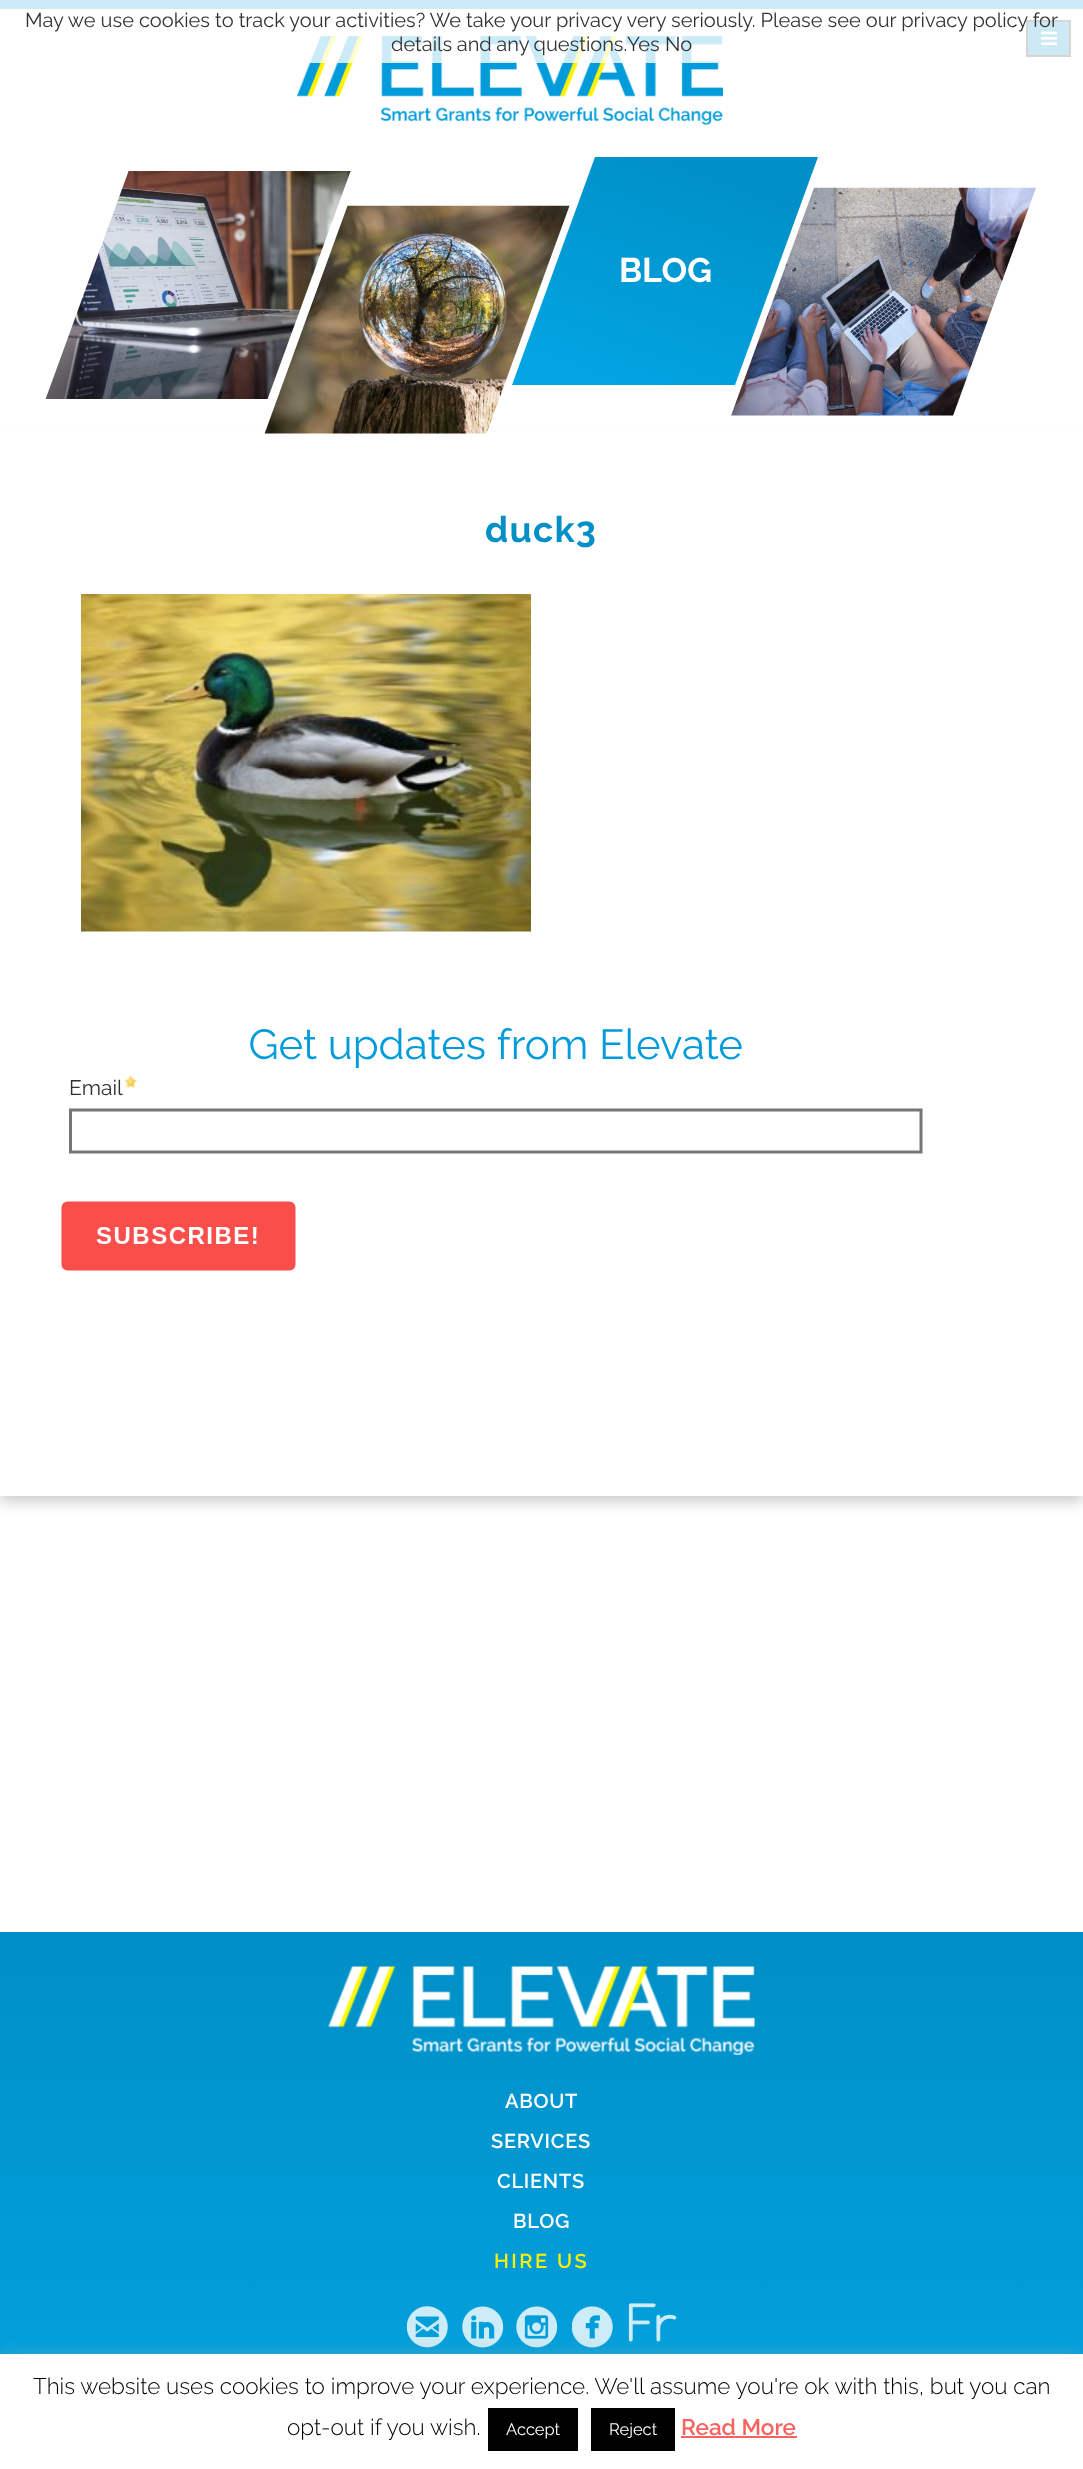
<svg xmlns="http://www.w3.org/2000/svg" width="1083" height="2469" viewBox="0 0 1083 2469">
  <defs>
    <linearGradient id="g1" gradientUnits="userSpaceOnUse" x1="707" y1="157" x2="623" y2="385"><stop offset="0" stop-color="rgb(0,143,198)"/><stop offset="1" stop-color="rgb(2,164,226)"/></linearGradient>
    <linearGradient id="g2" gradientUnits="userSpaceOnUse" x1="542" y1="1932" x2="542" y2="2469"><stop offset="0" stop-color="rgb(0,143,198)"/><stop offset="1" stop-color="rgb(2,164,226)"/></linearGradient>
  </defs>
  <rect width="100%" height="100%" fill="rgb(255,255,255)"/>
  <rect x="0" y="0" width="1083" height="9" fill="rgb(1,157,217)"/>
  <image x="297" y="36" width="426" height="89" href="pic1.png"/>
  <rect x="1027" y="21" width="43" height="35" fill="rgb(0,143,198)" stroke="rgb(49,49,49)" stroke-width="2"/>
  <image x="1041" y="31" width="17" height="14" href="pic2.png"/>
  <rect x="0" y="0" width="1083" height="63" fill="rgba(255,255,255,0.8)"/>
  <g font-family="Raleway" font-size="20" font-weight="100" fill="rgb(51,51,51)">
    <text x="25" y="27">May we use cookies to track your activities? We take your privacy very seriously. Please see our privacy policy for</text>
    <text x="391" y="51" word-spacing="-0.5">details and any questions.</text>
  </g>
  <g font-family="Raleway" font-size="20" font-weight="100" fill="rgb(44,48,50)">
    <text x="627" y="51">Yes</text>
    <text x="665" y="51">No</text>
  </g>
  <image x="45" y="171" width="306" height="228" href="pic3.png"/>
  <rect x="0" y="441" width="1083" height="1061" fill="rgba(0,0,0,0.2)" filter="blur(7px)"/>
  <rect x="0" y="430" width="1083" height="1066" fill="rgb(255,255,255)"/>
  <image x="264" y="205" width="306" height="229" href="pic4.png"/>
  <path d="M595 157H818L735 385H512Z" fill="url(#g1)"/>
  <text x="619" y="282" font-family="Raleway" font-size="34" font-weight="bold" fill="rgb(255,255,255)">BLOG</text>
  <image x="731" y="187" width="305" height="229" href="pic5.png"/>
  <text x="485" y="542" font-family="Raleway" font-size="36" font-weight="bold" letter-spacing="1.25" fill="rgb(0,143,198)">duck3</text>
  <image x="81" y="594" width="450" height="338" href="pic6.png"/>
  <image x="61" y="1028" width="862" height="243" href="pic7.png"/>
  <rect x="0" y="1932" width="1083" height="422" fill="url(#g2)"/>
  <image x="328" y="1966" width="427" height="89" href="pic8.png"/>
  <g font-family="Raleway" font-size="20" font-weight="600" letter-spacing="0.75" fill="rgb(255,255,255)">
    <text x="505" y="2108">ABOUT</text>
    <text x="491" y="2148">SERVICES</text>
    <text x="497" y="2188">CLIENTS</text>
    <text x="513" y="2228">BLOG</text>
  </g>
  <text x="494" y="2268" font-family="Raleway" font-size="20" font-weight="600" letter-spacing="2.5" fill="rgb(255,241,1)">HIRE US</text>
  <image x="407" y="2306" width="41" height="42" href="pic9.png"/>
  <image x="462" y="2306" width="42" height="42" href="pic10.png"/>
  <image x="516" y="2306" width="42" height="42" href="pic11.png"/>
  <image x="572" y="2306" width="41" height="42" href="pic12.png"/>
  <image x="628" y="2303" width="49" height="39" href="pic13.png"/>
  <rect x="0" y="2352" width="1083" height="116" fill="rgba(172,171,171,0.3)" filter="blur(7.5px)"/>
  <rect x="0" y="2354" width="1083" height="115" fill="rgb(255,255,255)"/>
  <g font-family="Raleway" font-size="22.5" font-weight="300" fill="rgb(0,0,0)">
    <text x="33" y="2394">This website uses cookies to improve your experience. We'll assume you're ok with this, but you can</text>
    <text x="287" y="2435">opt-out if you wish.</text>
  </g>
  <rect x="488" y="2408" width="90" height="43" fill="rgb(0,0,0)"/>
  <text x="506" y="2435" font-family="Raleway" font-size="16.5" font-weight="100" fill="rgb(255,255,255)">Accept</text>
  <rect x="591" y="2408" width="84" height="43" fill="rgb(0,0,0)"/>
  <text x="609" y="2435" font-family="Raleway" font-size="16.5" font-weight="100" fill="rgb(255,255,255)">Reject</text>
  <text x="681" y="2435" font-family="Raleway" font-size="22.5" font-weight="600" fill="rgb(250,98,95)">Read More</text>
  <rect x="681" y="2436" width="116" height="2" fill="rgb(250,98,95)"/>
</svg>
